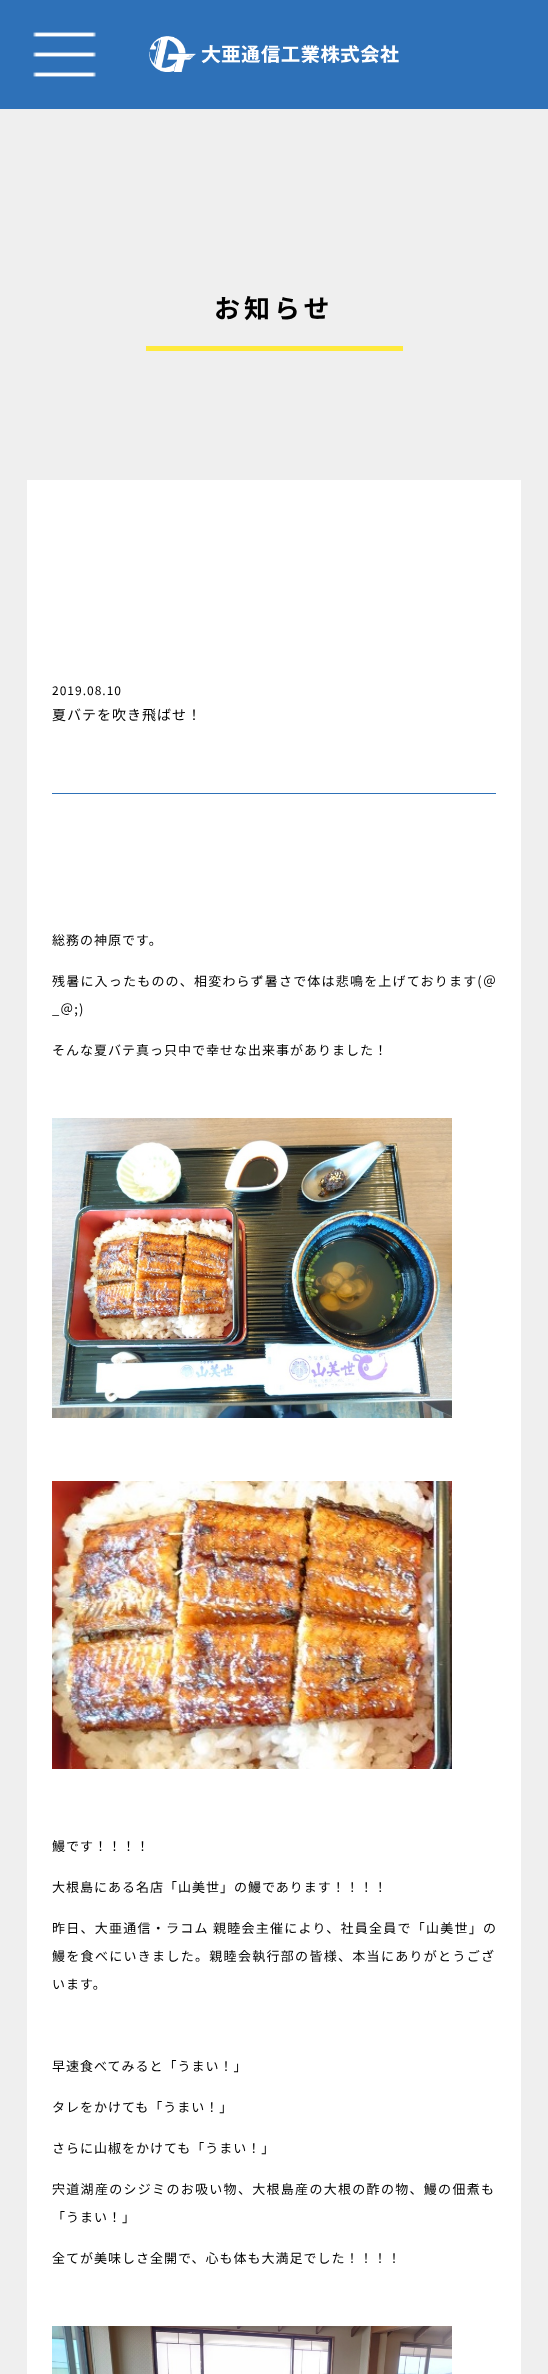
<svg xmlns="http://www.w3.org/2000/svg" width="548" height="2374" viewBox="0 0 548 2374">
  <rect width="100%" height="100%" fill="rgb(239,239,239)"/>
  <rect x="0" y="0" width="548" height="109" fill="rgb(46,113,184)"/>
  <image x="33" y="32" width="63" height="45" href="pic1.png"/>
  <image x="149" y="36" width="250" height="36" href="pic2.png"/>
  <text x="214" y="318" font-family="Noto Sans JP" font-size="26" font-weight="bold" letter-spacing="4" fill="rgb(0,0,0)">お知らせ</text>
  <rect x="146" y="346" width="257" height="5" fill="rgb(255,234,61)"/>
  <rect x="27" y="480" width="494" height="1894" fill="rgb(255,255,255)"/>
  <rect x="52" y="793" width="444" height="1" fill="rgb(46,113,184)"/>
  <text x="52" y="695" font-family="Noto Sans JP" font-size="12" letter-spacing="1" fill="rgb(0,0,0)">2019.08.10</text>
  <text x="52" y="720" font-family="Noto Sans JP" font-size="14" letter-spacing="1" fill="rgb(0,0,0)">夏バテを吹き飛ばせ！</text>
  <text x="52" y="945" font-family="Noto Sans JP" font-size="13" letter-spacing="1" fill="rgb(0,0,0)">総務の神原です。</text>
  <text x="52" y="986" font-family="Noto Sans JP" font-size="13" letter-spacing="1.2" fill="rgb(0,0,0)">残暑に入ったものの、相変わらず暑さで体は悲鳴を上げております(＠</text>
  <g font-family="Noto Sans JP" font-size="13" letter-spacing="1" fill="rgb(0,0,0)">
    <text x="52" y="1014">_＠;)</text>
    <text x="52" y="1055">そんな夏バテ真っ只中で幸せな出来事がありました！</text>
  </g>
  <image x="52" y="1118" width="400" height="300" href="pic3.png"/>
  <image x="52" y="1481" width="400" height="288" href="pic4.png"/>
  <g font-family="Noto Sans JP" font-size="13" letter-spacing="1" fill="rgb(0,0,0)">
    <text x="52" y="1851">鰻です！！！！</text>
    <text x="52" y="1892">大根島にある名店「山美世」の鰻であります！！！！</text>
  </g>
  <text x="52" y="1933" font-family="Noto Sans JP" font-size="13" letter-spacing="1.25" fill="rgb(0,0,0)">昨日、大亜通信・ラコム 親睦会主催により、社員全員で「山美世」の</text>
  <text x="52" y="1961" font-family="Noto Sans JP" font-size="13" letter-spacing="1.3" fill="rgb(0,0,0)">鰻を食べにいきました。親睦会執行部の皆様、本当にありがとうござ</text>
  <g font-family="Noto Sans JP" font-size="13" letter-spacing="1" fill="rgb(0,0,0)">
    <text x="52" y="1989">います。</text>
    <text x="52" y="2071">早速食べてみると「うまい！」</text>
    <text x="52" y="2112">タレをかけても「うまい！」</text>
    <text x="52" y="2153">さらに山椒をかけても「うまい！」</text>
  </g>
  <text x="52" y="2194" font-family="Noto Sans JP" font-size="13" letter-spacing="1.3" fill="rgb(0,0,0)">宍道湖産のシジミのお吸い物、大根島産の大根の酢の物、鰻の佃煮も</text>
  <g font-family="Noto Sans JP" font-size="13" letter-spacing="1" fill="rgb(0,0,0)">
    <text x="52" y="2222">「うまい！」</text>
    <text x="52" y="2263">全てが美味しさ全開で、心も体も大満足でした！！！！</text>
  </g>
  <image x="52" y="2326" width="400" height="48" href="pic5.png"/>
</svg>
